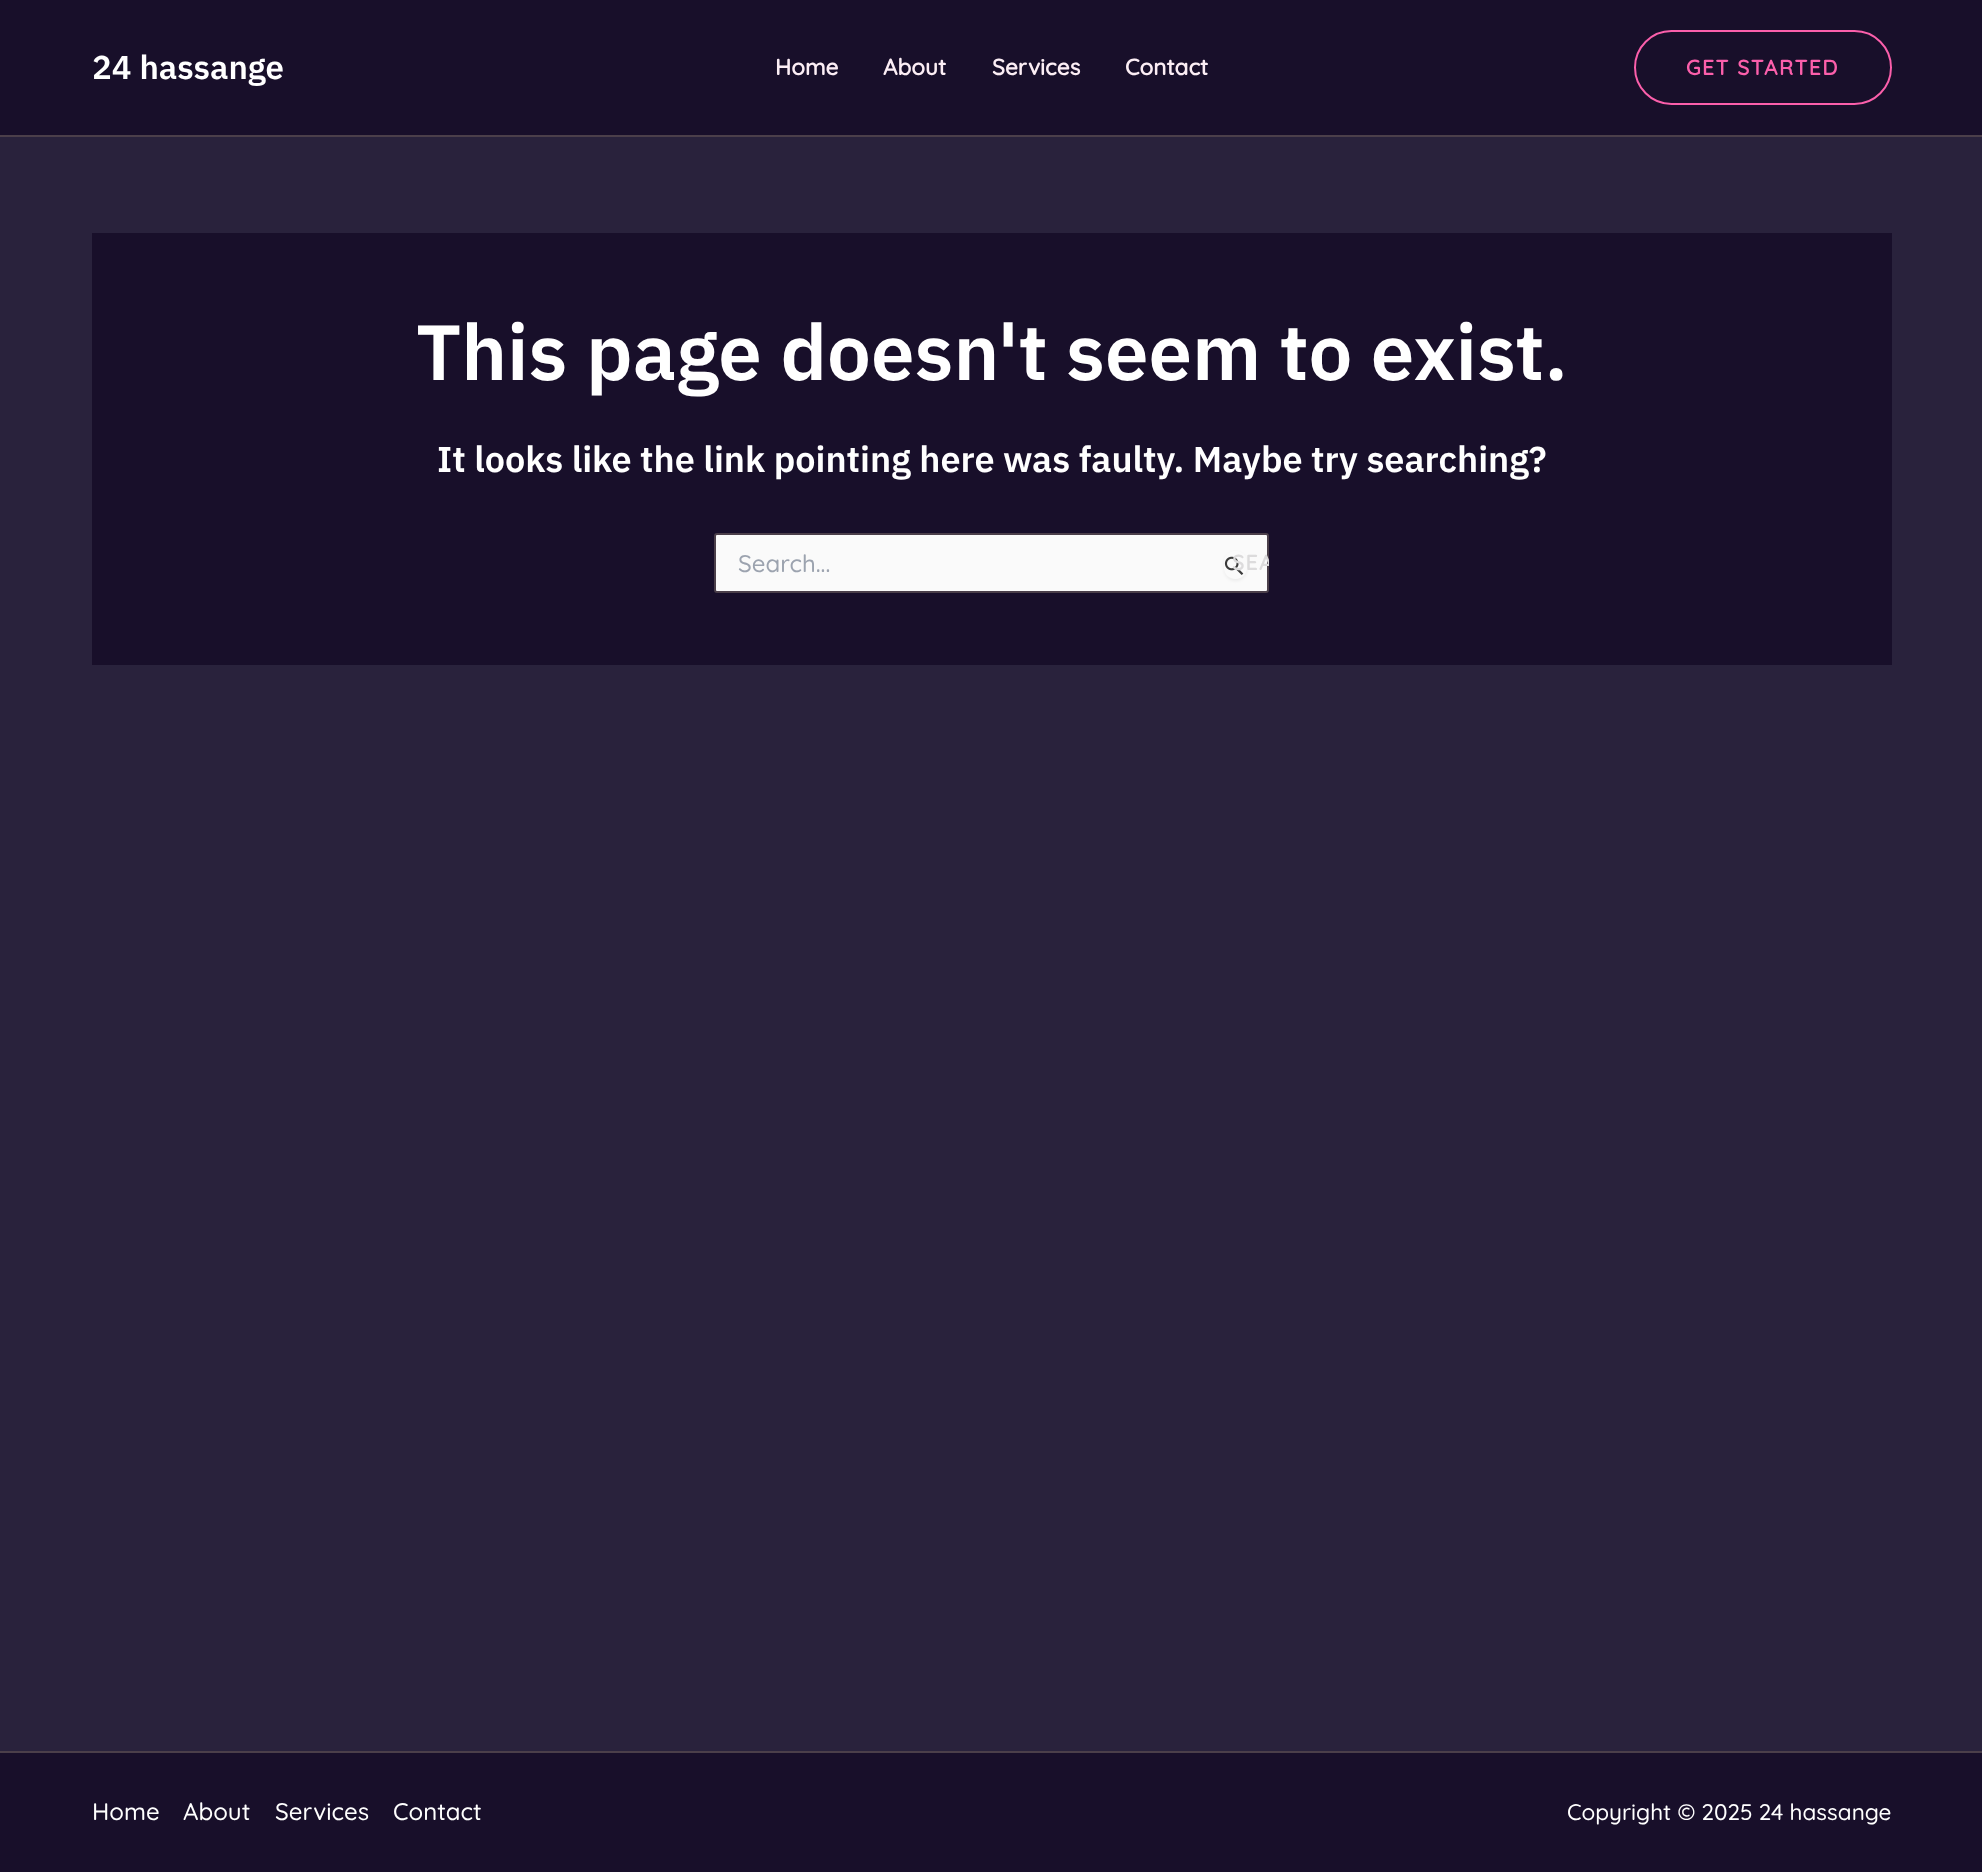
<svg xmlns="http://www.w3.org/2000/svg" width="1982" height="1872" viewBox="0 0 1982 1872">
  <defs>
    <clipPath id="clip1"><path d="M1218 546H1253V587H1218ZM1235.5 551C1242 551 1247 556 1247 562.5V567.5C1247 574 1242 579 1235.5 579C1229 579 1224 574 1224 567.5V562.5C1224 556 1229 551 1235.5 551Z" clip-rule="evenodd"/></clipPath>
    <clipPath id="clip2"><rect x="1202" y="533" width="67" height="60" rx="3"/></clipPath>
  </defs>
  <rect width="100%" height="100%" fill="rgb(41,34,60)"/>
  <rect x="0" y="0" width="1982" height="135" fill="rgb(24,15,42)"/>
  <rect x="0" y="135" width="1982" height="2" fill="rgb(75,63,74)"/>
  <text x="92" y="79" font-family="IBM Plex Sans" font-size="33" font-weight="600" fill="rgb(255,255,255)">24 hassange</text>
  <g font-family="Quicksand" font-size="22.5" font-weight="bold" fill="rgb(252,238,245)">
    <text x="775" y="75">Home</text>
    <text x="883" y="75">About</text>
    <text x="992" y="75">Services</text>
    <text x="1125" y="75">Contact</text>
  </g>
  <rect x="1635" y="31" width="256" height="73" rx="36.5" fill="none" stroke="rgb(251,95,171)" stroke-width="2"/>
  <text x="1686" y="75" font-family="Quicksand" font-size="21" font-weight="bold" letter-spacing="1.5" fill="rgb(251,95,171)">GET STARTED</text>
  <rect x="92" y="233" width="1800" height="432" fill="rgb(24,15,42)"/>
  <text x="416" y="380" font-family="IBM Plex Sans" font-size="78" font-weight="600" fill="rgb(255,255,255)">This page doesn't seem to exist.</text>
  <text x="437" y="472" font-family="IBM Plex Sans" font-size="36" font-weight="600" fill="rgb(255,255,255)">It looks like the link pointing here was faulty. Maybe try searching?</text>
  <rect x="715" y="534" width="553" height="58" rx="2" fill="rgb(250,250,250)" stroke="rgb(75,63,74)" stroke-width="2"/>
  <text x="738" y="572" font-family="Quicksand" font-size="24" font-weight="300" fill="rgb(156,163,175)">Search...</text>
  <g clip-path="url(#clip1)">
    <rect x="1224" y="552" width="23" height="29" rx="11.5" fill="rgba(0,0,0,0.05)" filter="blur(1.5px)"/>
  </g>
  <image x="1224" y="556" width="20" height="19" href="pic1.png"/>
  <g clip-path="url(#clip2)">
    <text x="1232" y="570" font-family="Quicksand" font-size="21" font-weight="bold" letter-spacing="1.5" fill="rgb(220,219,220)">SEA</text>
  </g>
  <rect x="0" y="1753" width="1982" height="119" fill="rgb(24,15,42)"/>
  <rect x="0" y="1751" width="1982" height="2" fill="rgb(75,63,74)"/>
  <g font-family="Quicksand" font-size="24" font-weight="300" fill="rgb(255,255,255)">
    <text x="92" y="1820">Home</text>
    <text x="183" y="1820">About</text>
    <text x="275" y="1820">Services</text>
    <text x="393" y="1820">Contact</text>
  </g>
  <text x="1567" y="1820" font-family="Quicksand" font-size="22.5" font-weight="300" fill="rgb(255,255,255)">Copyright © 2025 24 hassange</text>
</svg>
